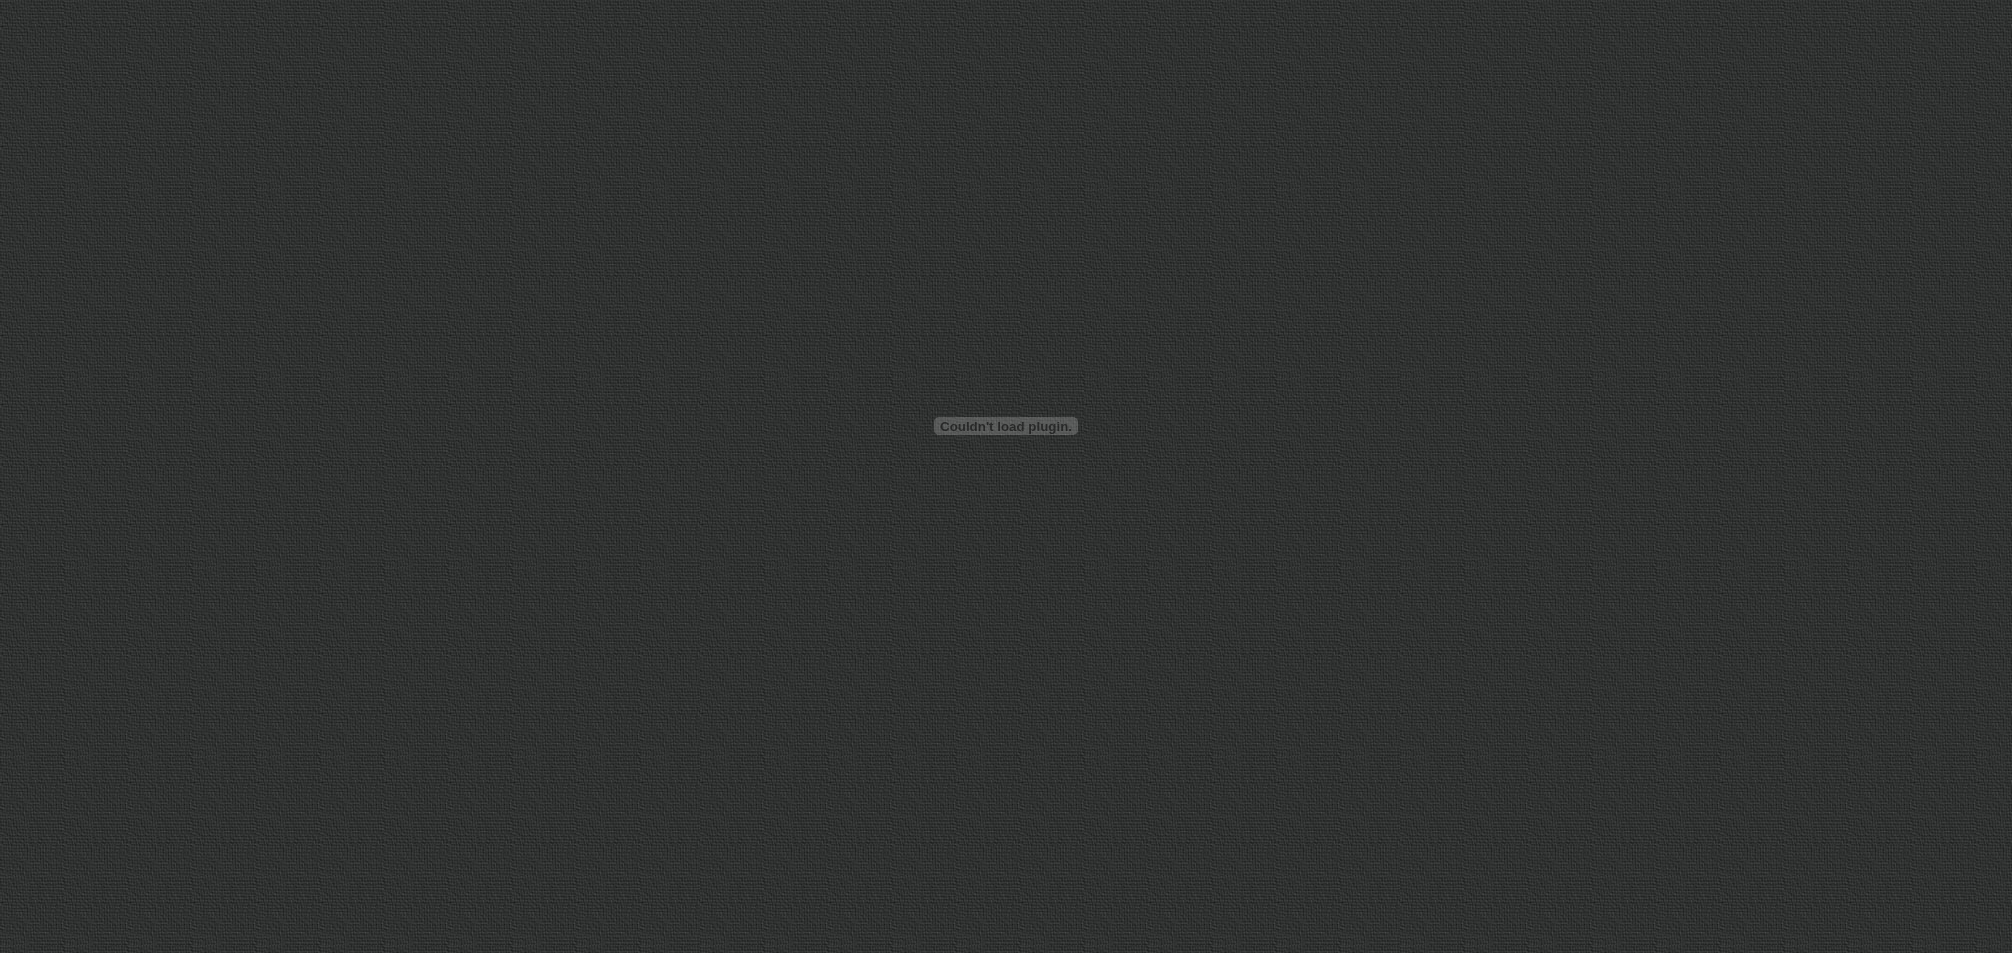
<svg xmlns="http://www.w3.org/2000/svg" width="2012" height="953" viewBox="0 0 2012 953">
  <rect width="100%" height="100%" fill="rgb(255,255,255)"/>
  <image x="0" y="0" width="2012" height="953" href="pic1.png"/>
  <image x="934" y="417" width="144" height="18" href="pic2.png"/>
</svg>
